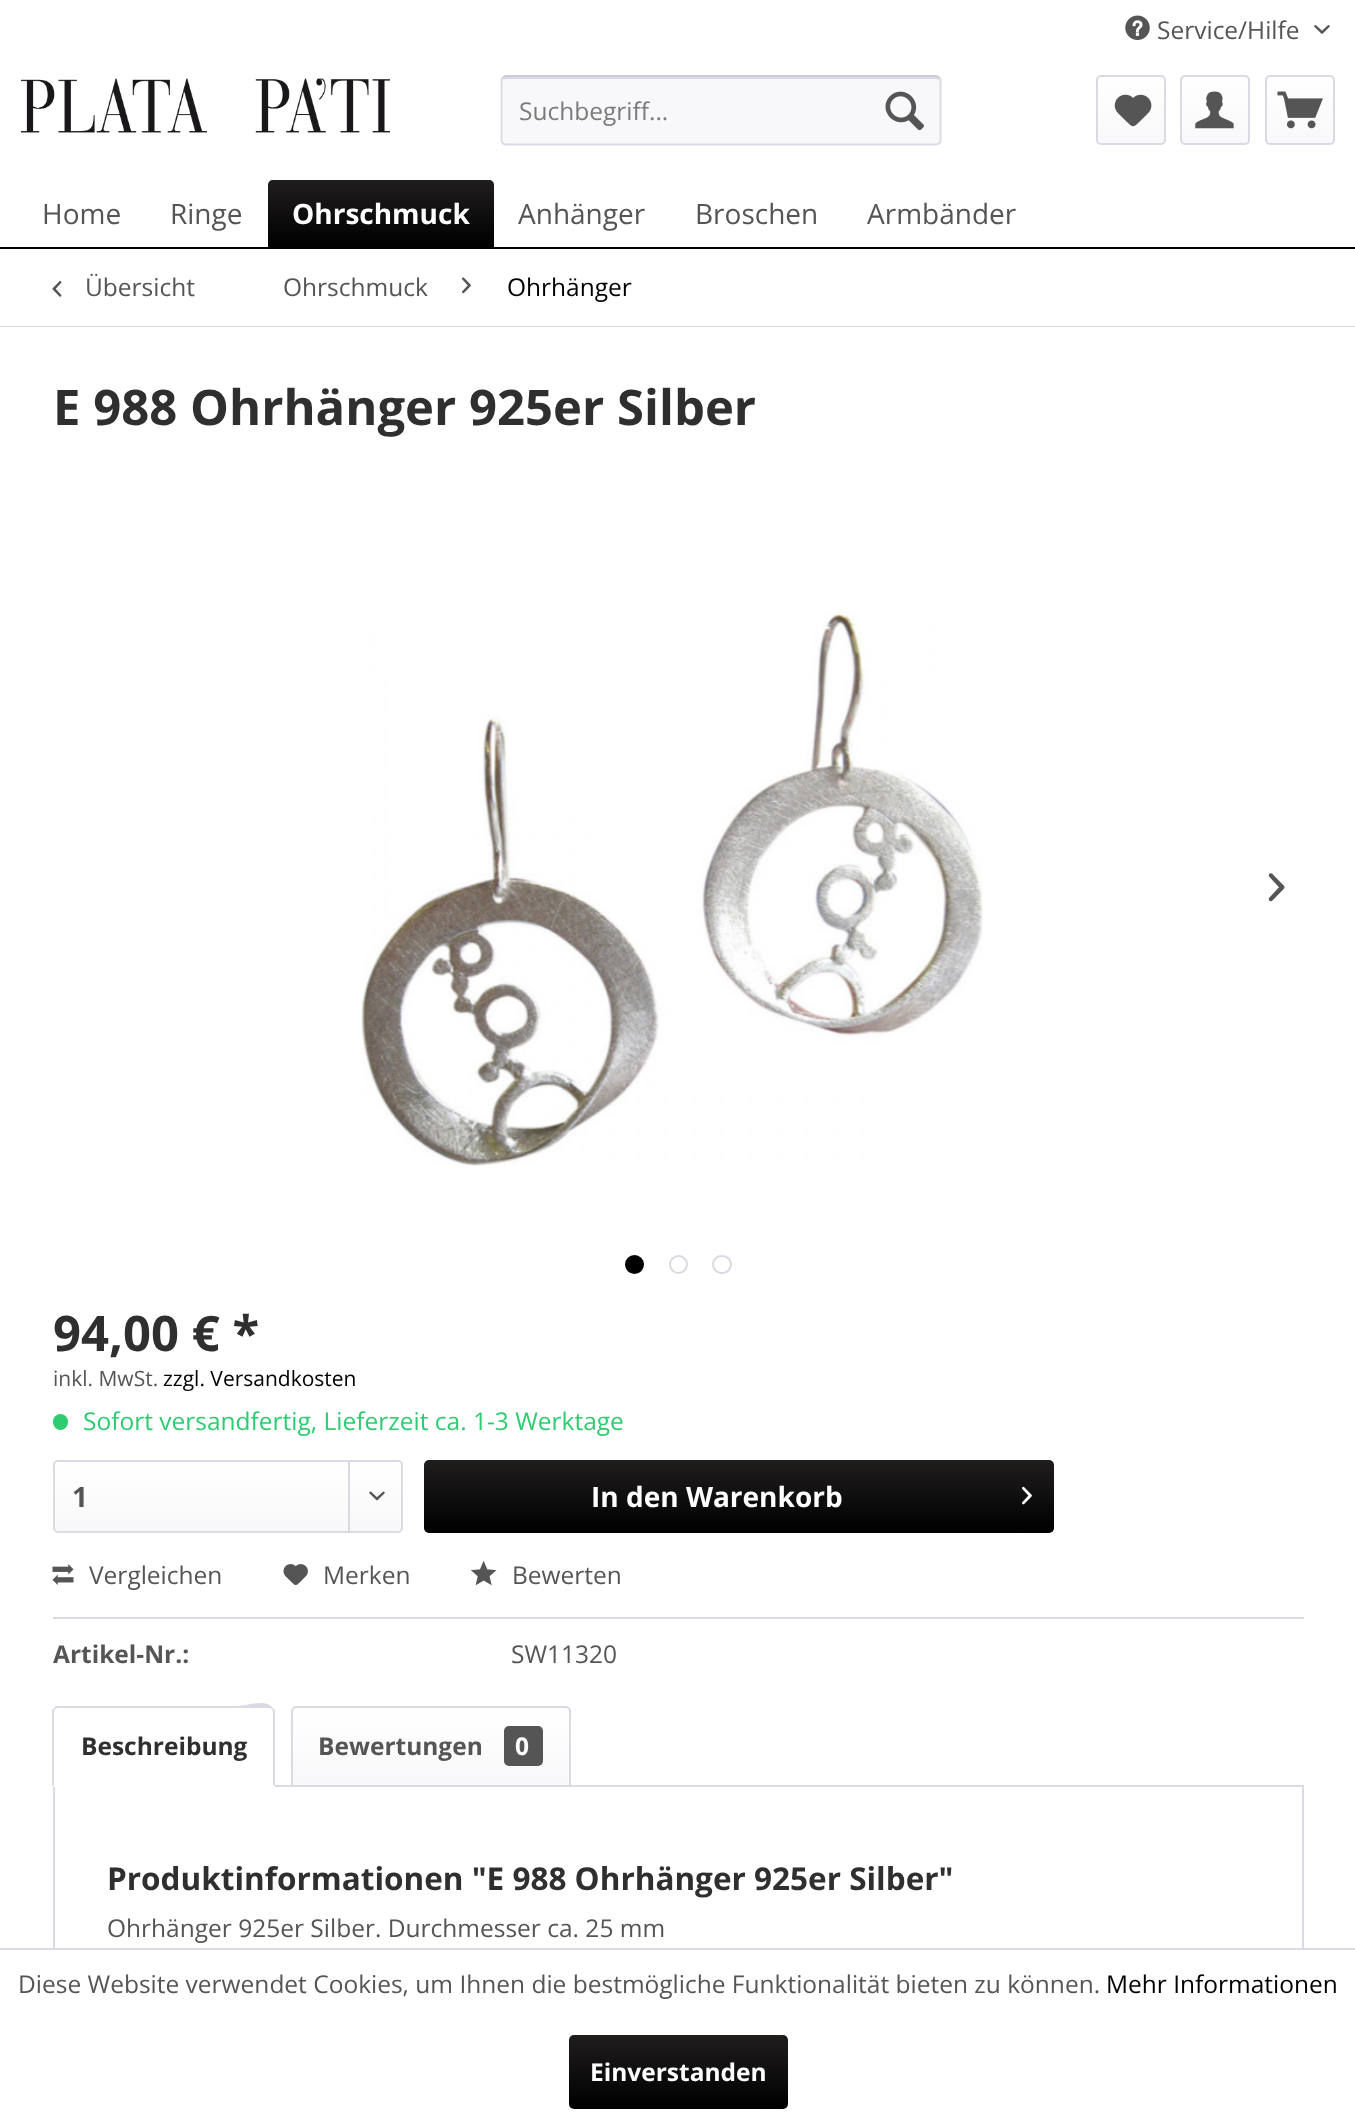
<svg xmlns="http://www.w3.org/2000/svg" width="1355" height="2125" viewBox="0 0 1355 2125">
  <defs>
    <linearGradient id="g1" gradientUnits="userSpaceOnUse" x1="1131" y1="77" x2="1131" y2="144"><stop offset="0" stop-color="rgb(255,255,255)"/><stop offset="1" stop-color="rgb(248,248,250)"/></linearGradient>
    <linearGradient id="g2" gradientUnits="userSpaceOnUse" x1="1215" y1="77" x2="1215" y2="144"><stop offset="0" stop-color="rgb(255,255,255)"/><stop offset="1" stop-color="rgb(248,248,250)"/></linearGradient>
    <linearGradient id="g3" gradientUnits="userSpaceOnUse" x1="1300" y1="77" x2="1300" y2="144"><stop offset="0" stop-color="rgb(255,255,255)"/><stop offset="1" stop-color="rgb(248,248,250)"/></linearGradient>
    <linearGradient id="g4" gradientUnits="userSpaceOnUse" x1="381" y1="180" x2="381" y2="247"><stop offset="0" stop-color="rgb(32,29,29)"/><stop offset="1" stop-color="rgb(0,0,0)"/></linearGradient>
    <linearGradient id="g5" gradientUnits="userSpaceOnUse" x1="228" y1="1461" x2="228" y2="1531"><stop offset="0" stop-color="rgb(255,255,255)"/><stop offset="1" stop-color="rgb(248,248,250)"/></linearGradient>
    <linearGradient id="g6" gradientUnits="userSpaceOnUse" x1="739" y1="1460" x2="739" y2="1533"><stop offset="0" stop-color="rgb(32,29,29)"/><stop offset="1" stop-color="rgb(0,0,0)"/></linearGradient>
    <linearGradient id="g7" gradientUnits="userSpaceOnUse" x1="431" y1="1708" x2="431" y2="1785"><stop offset="0" stop-color="rgb(255,255,255)"/><stop offset="1" stop-color="rgb(248,248,250)"/></linearGradient>
    <linearGradient id="g8" gradientUnits="userSpaceOnUse" x1="678" y1="2035" x2="678" y2="2109"><stop offset="0" stop-color="rgb(32,29,29)"/><stop offset="1" stop-color="rgb(0,0,0)"/></linearGradient>
  </defs>
  <rect width="100%" height="100%" fill="rgb(255,255,255)"/>
  <image x="1125" y="15" width="25" height="25" href="pic1.png"/>
  <text x="1157" y="39" font-family="Open Sans" font-size="24.5" fill="rgb(85,85,85)">Service/Hilfe</text>
  <image x="1314" y="25" width="16" height="9" href="pic2.png"/>
  <image x="21" y="78" width="369" height="55" href="pic3.png"/>
  <rect x="501" y="75" width="441" height="70" rx="5" fill="rgb(248,248,250)"/>
  <path d="M506 79H936C938 79 940 80 940 82C940 79 939 77 936 77H506C503 77 502 79 502 82C502 80 504 79 506 79Z" fill="rgb(218,218,229)"/>
  <path d="M502.5 77.5L506 76H936L939.5 77.5" fill="none" stroke="rgb(203,203,219)" stroke-width="1.8"/>
  <path d="M939.5 77.5C940 78 940.5 79.5 940.5 80.5V140C940.5 141 940 142.5 939.5 143C938.5 144 937.5 144.5 936 144.5H506C504.5 144.5 503.5 144 502.5 143C502 142.5 501.5 141 501.5 140V80.5C501.5 79.5 502 78 502.5 77.5" fill="none" stroke="rgb(218,218,229)" stroke-width="1.8"/>
  <text x="519" y="120" font-family="Open Sans" font-size="24.5" fill="rgb(123,123,123)">Suchbegriff...</text>
  <image x="885" y="91" width="39" height="40" href="pic4.png"/>
  <rect x="1097" y="77" width="67" height="67" rx="4" fill="url(#g1)"/>
  <rect x="1097" y="76" width="68" height="68" rx="4" fill="none" stroke="rgb(218,218,229)" stroke-width="2"/>
  <image x="1114" y="94" width="38" height="33" href="pic5.png"/>
  <rect x="1181" y="77" width="67" height="67" rx="4" fill="url(#g2)"/>
  <rect x="1181" y="76" width="68" height="68" rx="4" fill="none" stroke="rgb(218,218,229)" stroke-width="2"/>
  <image x="1195" y="91" width="39" height="38" href="pic6.png"/>
  <rect x="1267" y="77" width="67" height="67" rx="4" fill="url(#g3)"/>
  <rect x="1266" y="76" width="68" height="68" rx="4" fill="none" stroke="rgb(218,218,229)" stroke-width="2"/>
  <image x="1277" y="91" width="46" height="38" href="pic7.png"/>
  <rect x="0" y="247" width="1355" height="2" fill="rgb(0,0,0)"/>
  <g font-family="Open Sans" font-size="28" fill="rgb(85,85,85)">
    <text x="42" y="224">Home</text>
    <text x="170" y="224">Ringe</text>
  </g>
  <path d="M273 180H489C492 180 494 182 494 185V247H268V185C268 182 270 180 273 180Z" fill="url(#g4)"/>
  <text x="292" y="224" font-family="Open Sans" font-size="28" font-weight="bold" fill="rgb(255,255,255)">Ohrschmuck</text>
  <g font-family="Open Sans" font-size="28" fill="rgb(85,85,85)">
    <text x="518" y="224">Anhänger</text>
    <text x="695" y="224">Broschen</text>
    <text x="867" y="224">Armbänder</text>
  </g>
  <rect x="0" y="326" width="1355" height="1" fill="rgb(218,218,229)"/>
  <image x="52" y="281" width="10" height="16" href="pic8.png"/>
  <g font-family="Open Sans" font-size="24.5" fill="rgb(85,85,85)">
    <text x="85" y="296">Übersicht</text>
    <text x="283" y="296">Ohrschmuck</text>
  </g>
  <image x="462" y="277" width="9" height="17" href="pic9.png"/>
  <text x="507" y="296" font-family="Open Sans" font-size="24.5" fill="rgb(0,0,0)">Ohrhänger</text>
  <text x="53" y="425" font-family="Open Sans" font-size="49" font-weight="bold" fill="rgb(47,47,47)">E 988 Ohrhänger 925er Silber</text>
  <image x="361" y="612" width="622" height="554" href="pic10.png"/>
  <image x="1268" y="873" width="17" height="29" href="pic11.png"/>
  <circle cx="634.5" cy="1264.5" r="8.5" fill="rgb(0,0,0)" stroke="rgb(0,0,0)" stroke-width="2"/>
  <circle cx="678.5" cy="1264.5" r="8.5" fill="none" stroke="rgb(218,218,229)" stroke-width="2"/>
  <rect x="713" y="1256" width="18" height="17" rx="8.5" fill="none" stroke="rgb(218,218,229)" stroke-width="2"/>
  <text x="53" y="1351" font-family="Open Sans" font-size="49" font-weight="bold" fill="rgb(47,47,47)">94,00 € *</text>
  <text x="53" y="1386" font-family="Open Sans" font-size="21" fill="rgb(85,85,85)">inkl. MwSt.</text>
  <text x="163" y="1386" font-family="Open Sans" font-size="21" fill="rgb(0,0,0)">zzgl. Versandkosten</text>
  <rect x="53" y="1414" width="15" height="16" rx="7.5" fill="rgb(46,204,113)"/>
  <text x="83" y="1430" font-family="Open Sans" font-size="24.5" fill="rgb(46,204,113)">Sofort versandfertig, Lieferzeit ca. 1-3 Werktage</text>
  <rect x="54" y="1461" width="347" height="70" rx="4" fill="url(#g5)"/>
  <rect x="54" y="1461" width="348" height="71" rx="4" fill="none" stroke="rgb(218,218,229)" stroke-width="2"/>
  <text x="72" y="1507" font-family="Open Sans" font-size="28" font-weight="bold" fill="rgb(85,85,85)">1</text>
  <rect x="348" y="1461" width="2" height="70" fill="rgb(218,218,229)"/>
  <image x="369" y="1491" width="16" height="10" href="pic12.png"/>
  <rect x="424" y="1460" width="630" height="73" rx="5" fill="url(#g6)"/>
  <text x="591" y="1507" font-family="Open Sans" font-size="28" font-weight="bold" fill="rgb(255,255,255)">In den Warenkorb</text>
  <image x="1022" y="1486" width="10" height="19" href="pic13.png"/>
  <rect x="53" y="1617" width="1251" height="2" fill="rgb(218,218,229)"/>
  <image x="52" y="1564" width="22" height="21" href="pic14.png"/>
  <text x="89" y="1584" font-family="Open Sans" font-size="24.5" fill="rgb(85,85,85)">Vergleichen</text>
  <image x="283" y="1564" width="25" height="21" href="pic15.png"/>
  <text x="323" y="1584" font-family="Open Sans" font-size="24.5" fill="rgb(85,85,85)">Merken</text>
  <image x="470" y="1561" width="27" height="25" href="pic16.png"/>
  <text x="512" y="1584" font-family="Open Sans" font-size="24.5" fill="rgb(85,85,85)">Bewerten</text>
  <text x="53" y="1663" font-family="Open Sans" font-size="24.5" font-weight="bold" fill="rgb(85,85,85)">Artikel-Nr.:</text>
  <text x="511" y="1663" font-family="Open Sans" font-size="24.5" fill="rgb(85,85,85)">SW11320</text>
  <rect x="54" y="1786" width="1249" height="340" fill="none" stroke="rgb(218,218,229)" stroke-width="2"/>
  <path d="M58 1706H270C273 1706 275 1708 275 1711V1787H53V1711C53 1708 55 1706 58 1706Z" fill="rgb(255,255,255)"/>
  <path d="M58 1708L55 1709L54 1708L56 1706H235C248 1706 265 1698 273 1708L272 1709L270 1708Z" fill="rgb(218,218,229)"/>
  <path d="M273 1708L275 1710V1787L273 1785V1712L272 1709Z" fill="rgb(218,218,229)"/>
  <path d="M275 1787L273 1785H54L52 1787Z" fill="rgb(255,255,255)"/>
  <path d="M52 1787V1710L54 1708L55 1709L54 1712V1785Z" fill="rgb(218,218,229)"/>
  <text x="81" y="1755" font-family="Open Sans" font-size="24.5" font-weight="bold" fill="rgb(47,47,47)">Beschreibung</text>
  <path d="M296 1708H565C567 1708 569 1710 569 1712V1785H292V1712C292 1710 294 1708 296 1708Z" fill="url(#g7)"/>
  <path d="M296 1707H566C568 1707 570 1709 570 1711V1786H292V1711C292 1709 294 1707 296 1707Z" fill="none" stroke="rgb(218,218,229)" stroke-width="2"/>
  <text x="318" y="1755" font-family="Open Sans" font-size="24.5" font-weight="bold" fill="rgb(85,85,85)">Bewertungen</text>
  <rect x="504" y="1726" width="39" height="40" rx="5" fill="rgb(85,85,85)"/>
  <text x="515" y="1755" font-family="Open Sans" font-size="24.5" font-weight="bold" fill="rgb(255,255,255)">0</text>
  <text x="107" y="1890" font-family="Open Sans" font-size="31.5" font-weight="bold" fill="rgb(47,47,47)">Produktinformationen "E 988 Ohrhänger 925er Silber"</text>
  <text x="107" y="1937" font-family="Open Sans" font-size="24.5" fill="rgb(85,85,85)">Ohrhänger 925er Silber. Durchmesser ca. 25 mm</text>
  <rect x="53" y="1950" width="1251" height="175" fill="rgb(255,255,255)"/>
  <rect x="0" y="1948" width="1355" height="2" fill="rgb(218,218,229)"/>
  <text x="18" y="1993" font-family="Open Sans" font-size="24.5" fill="rgb(85,85,85)">Diese Website verwendet Cookies, um Ihnen die bestmögliche Funktionalität bieten zu können.</text>
  <text x="1106" y="1993" font-family="Open Sans" font-size="24.5" fill="rgb(0,0,0)">Mehr Informationen</text>
  <rect x="569" y="2035" width="219" height="74" rx="5" fill="url(#g8)"/>
  <text x="590" y="2081" font-family="Open Sans" font-size="24.5" font-weight="bold" fill="rgb(255,255,255)">Einverstanden</text>
</svg>
